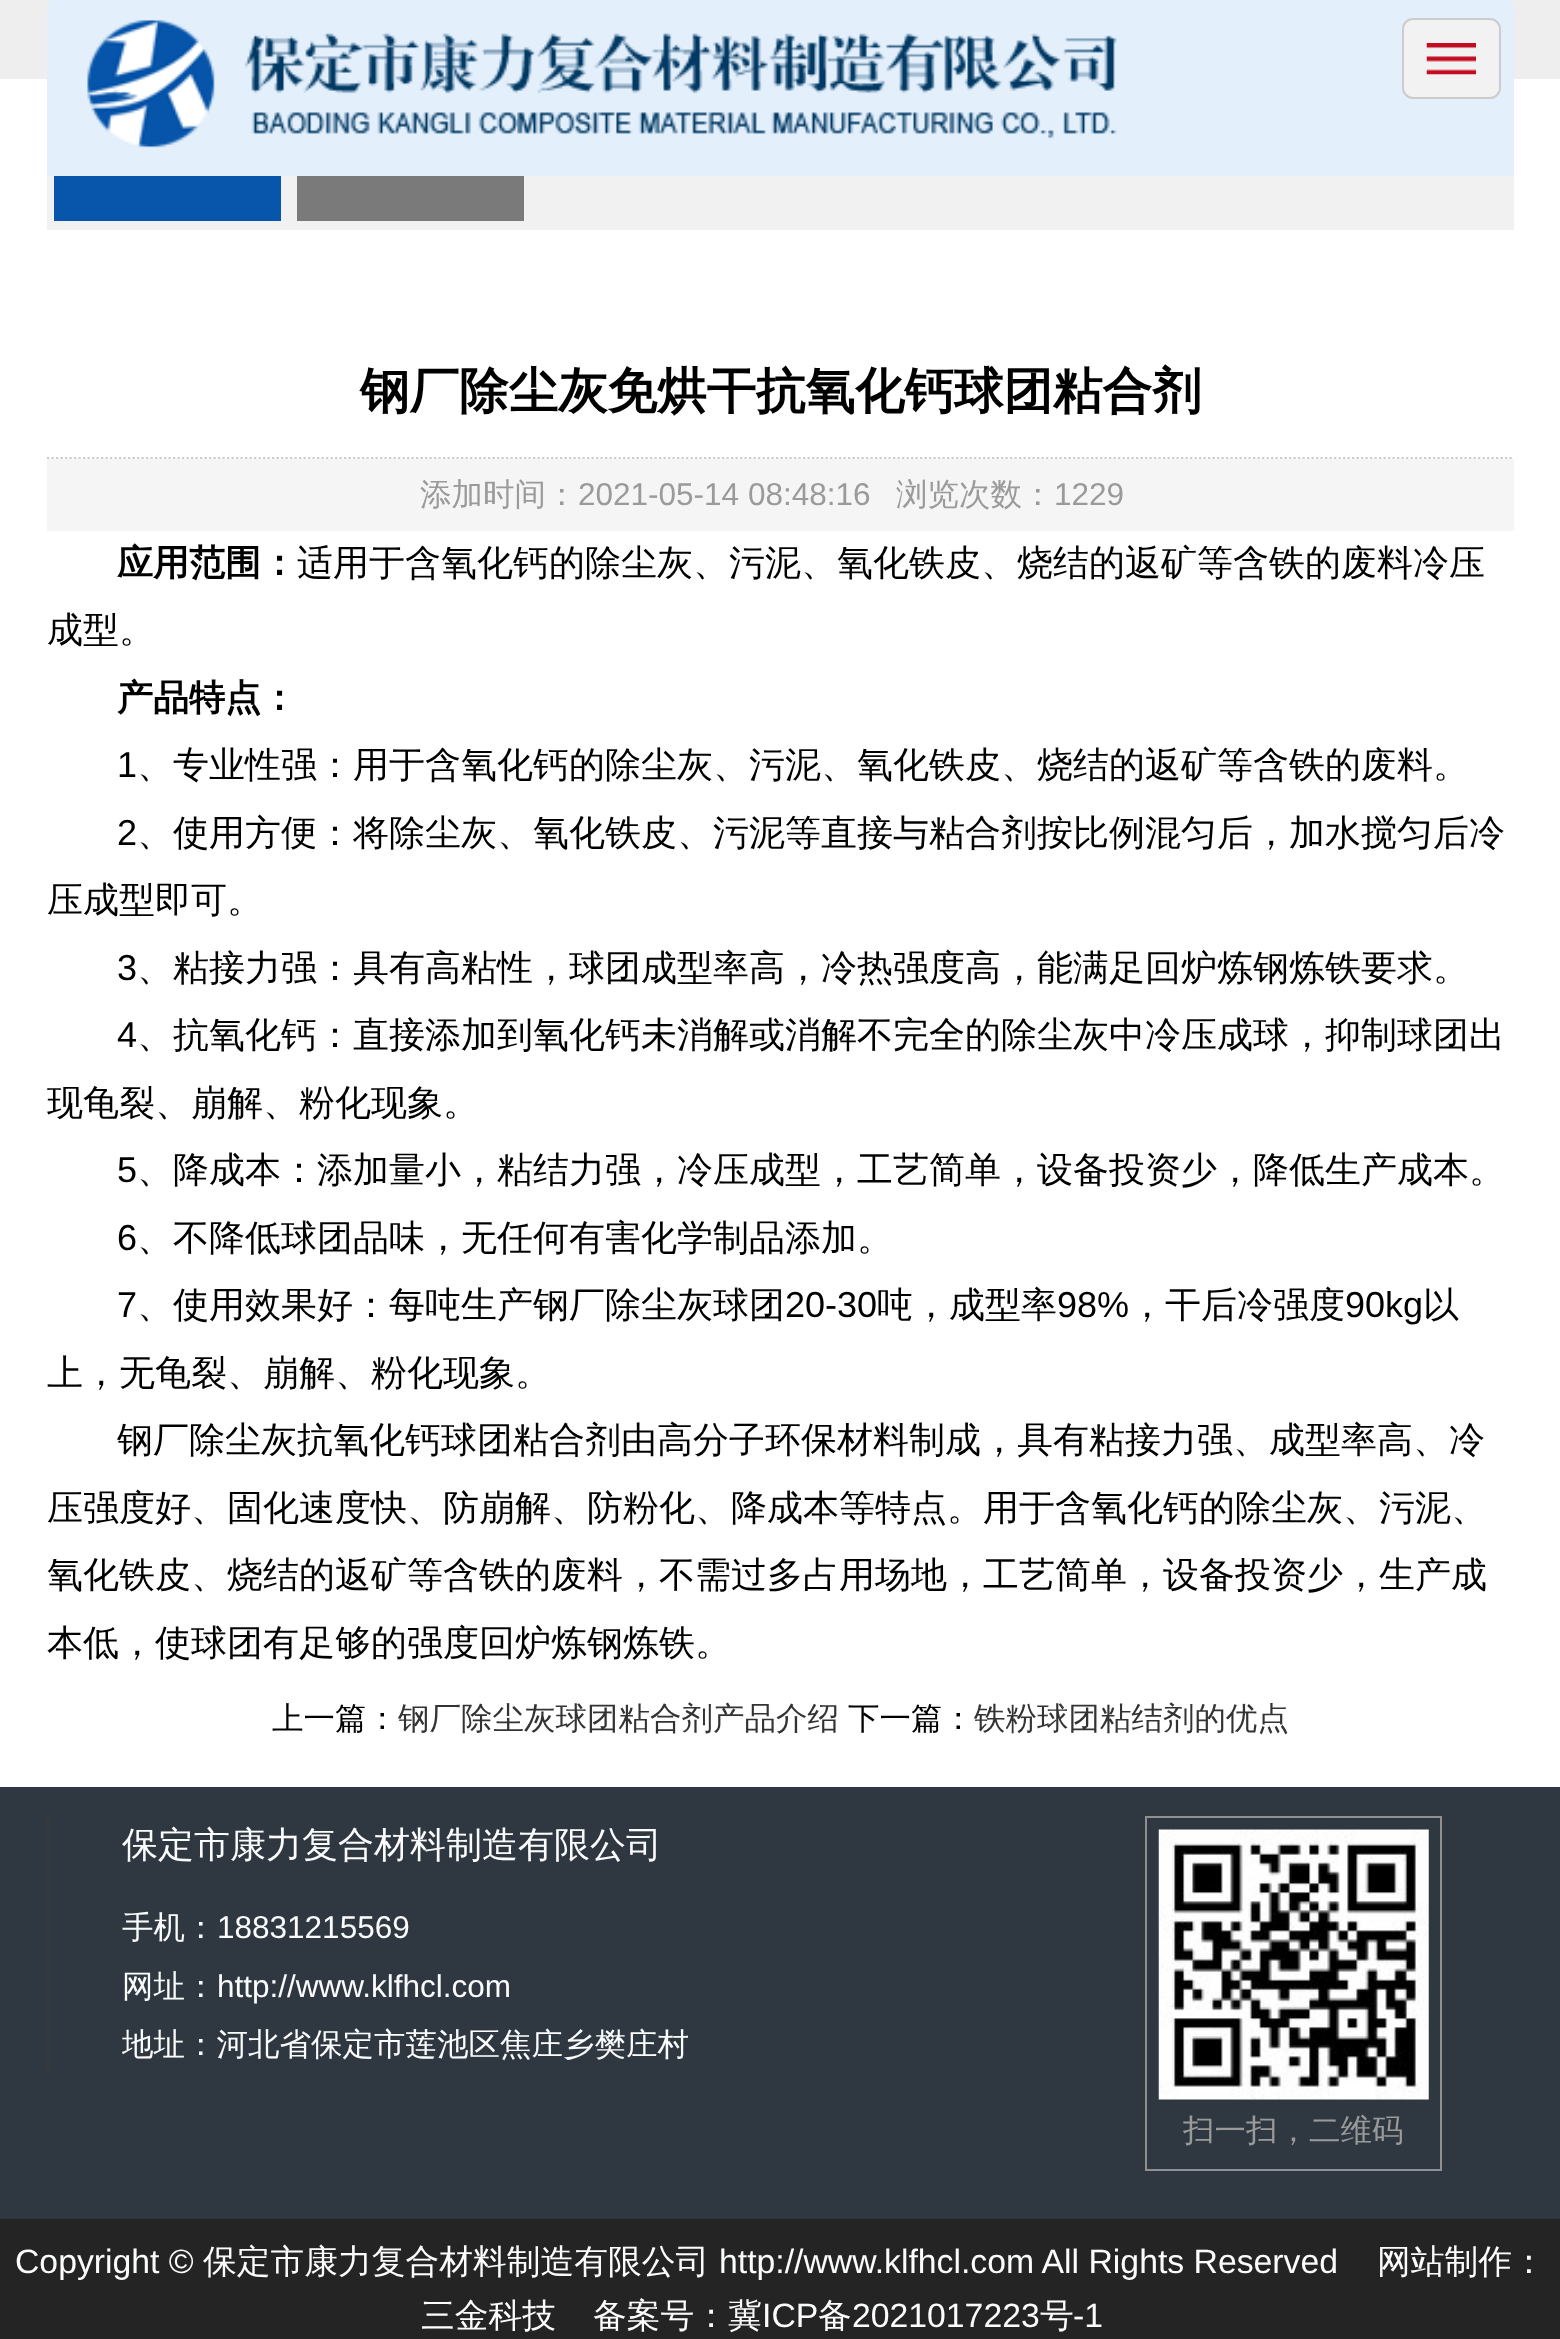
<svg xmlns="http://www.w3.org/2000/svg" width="1560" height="2339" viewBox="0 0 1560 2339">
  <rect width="100%" height="100%" fill="rgb(255,255,255)"/>
  <rect x="0" y="0" width="1560" height="79" fill="rgb(238,238,238)"/>
  <path d="M70-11H1491C1503.5-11 1514-.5 1514 12V176H47V12C47-.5 57.5-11 70-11Z" fill="rgb(227,239,251)"/>
  <image x="87" y="20" width="1030" height="128" href="pic1.png"/>
  <rect x="1403" y="19" width="97" height="79" rx="10" fill="rgb(242,242,242)" stroke="rgb(204,204,204)" stroke-width="2"/>
  <image x="1426" y="43" width="50" height="32" href="pic2.png"/>
  <rect x="47" y="176" width="1467" height="54" fill="rgb(241,241,241)"/>
  <rect x="54" y="176" width="227" height="45" fill="rgb(7,86,171)"/>
  <rect x="297" y="176" width="227" height="45" fill="rgb(122,122,122)"/>
  <path d="M47 458H1514" fill="none" stroke="rgb(204,204,204)" stroke-width="2.2" stroke-dasharray="2.25 2.25"/>
  <text x="360" y="408" font-family="WenQuanYi Zen Hei" font-size="49.5" font-weight="bold" fill="rgb(0,0,0)">钢厂除尘灰免烘干抗氧化钙球团粘合剂</text>
  <rect x="47" y="459" width="1467" height="72" fill="rgb(245,245,245)"/>
  <text x="420" y="505" font-family="WenQuanYi Zen Hei" font-size="31.5" font-weight="500" fill="rgb(154,154,154)">添加时间：</text>
  <text x="578" y="505" font-family="Liberation Sans" font-size="31.5" fill="rgb(154,154,154)">2021-05-14 08:48:16</text>
  <text x="896" y="505" font-family="WenQuanYi Zen Hei" font-size="31.5" font-weight="500" fill="rgb(154,154,154)">浏览次数：</text>
  <text x="1054" y="505" font-family="Liberation Sans" font-size="31.5" fill="rgb(154,154,154)">1229</text>
  <text x="117" y="575" font-family="WenQuanYi Zen Hei" font-size="36" font-weight="bold" fill="rgb(0,0,0)">应用范围：</text>
  <g font-family="WenQuanYi Zen Hei" font-size="36" font-weight="500" fill="rgb(0,0,0)">
    <text x="297" y="575">适用于含氧化钙的除尘灰、污泥、氧化铁皮、烧结的返矿等含铁的废料冷压</text>
    <text x="47" y="642">成型。</text>
  </g>
  <text x="117" y="710" font-family="WenQuanYi Zen Hei" font-size="36" font-weight="bold" fill="rgb(0,0,0)">产品特点：</text>
  <text x="117" y="777" font-family="Liberation Sans" font-size="36" fill="rgb(0,0,0)">1</text>
  <text x="137" y="777" font-family="WenQuanYi Zen Hei" font-size="36" font-weight="500" fill="rgb(0,0,0)">、专业性强：用于含氧化钙的除尘灰、污泥、氧化铁皮、烧结的返矿等含铁的废料。</text>
  <text x="117" y="845" font-family="Liberation Sans" font-size="36" fill="rgb(0,0,0)">2</text>
  <g font-family="WenQuanYi Zen Hei" font-size="36" font-weight="500" fill="rgb(0,0,0)">
    <text x="137" y="845">、使用方便：将除尘灰、氧化铁皮、污泥等直接与粘合剂按比例混匀后，加水搅匀后冷</text>
    <text x="47" y="912">压成型即可。</text>
  </g>
  <text x="117" y="980" font-family="Liberation Sans" font-size="36" fill="rgb(0,0,0)">3</text>
  <text x="137" y="980" font-family="WenQuanYi Zen Hei" font-size="36" font-weight="500" fill="rgb(0,0,0)">、粘接力强：具有高粘性，球团成型率高，冷热强度高，能满足回炉炼钢炼铁要求。</text>
  <text x="117" y="1047" font-family="Liberation Sans" font-size="36" fill="rgb(0,0,0)">4</text>
  <g font-family="WenQuanYi Zen Hei" font-size="36" font-weight="500" fill="rgb(0,0,0)">
    <text x="137" y="1047">、抗氧化钙：直接添加到氧化钙未消解或消解不完全的除尘灰中冷压成球，抑制球团出</text>
    <text x="47" y="1115">现龟裂、崩解、粉化现象。</text>
  </g>
  <text x="117" y="1182" font-family="Liberation Sans" font-size="36" fill="rgb(0,0,0)">5</text>
  <text x="137" y="1182" font-family="WenQuanYi Zen Hei" font-size="36" font-weight="500" fill="rgb(0,0,0)">、降成本：添加量小，粘结力强，冷压成型，工艺简单，设备投资少，降低生产成本。</text>
  <text x="117" y="1250" font-family="Liberation Sans" font-size="36" fill="rgb(0,0,0)">6</text>
  <text x="137" y="1250" font-family="WenQuanYi Zen Hei" font-size="36" font-weight="500" fill="rgb(0,0,0)">、不降低球团品味，无任何有害化学制品添加。</text>
  <text x="117" y="1317" font-family="Liberation Sans" font-size="36" fill="rgb(0,0,0)">7</text>
  <text x="137" y="1317" font-family="WenQuanYi Zen Hei" font-size="36" font-weight="500" fill="rgb(0,0,0)">、使用效果好：每吨生产钢厂除尘灰球团</text>
  <text x="785" y="1317" font-family="Liberation Sans" font-size="36" fill="rgb(0,0,0)">20-30</text>
  <text x="877" y="1317" font-family="WenQuanYi Zen Hei" font-size="36" font-weight="500" fill="rgb(0,0,0)">吨，成型率</text>
  <text x="1057" y="1317" font-family="Liberation Sans" font-size="36" fill="rgb(0,0,0)">98%</text>
  <text x="1129" y="1317" font-family="WenQuanYi Zen Hei" font-size="36" font-weight="500" fill="rgb(0,0,0)">，干后冷强度</text>
  <text x="1345" y="1317" font-family="Liberation Sans" font-size="36" fill="rgb(0,0,0)">90kg</text>
  <g font-family="WenQuanYi Zen Hei" font-size="36" font-weight="500" fill="rgb(0,0,0)">
    <text x="1423" y="1317">以</text>
    <text x="47" y="1385">上，无龟裂、崩解、粉化现象。</text>
    <text x="117" y="1452">钢厂除尘灰抗氧化钙球团粘合剂由高分子环保材料制成，具有粘接力强、成型率高、冷</text>
    <text>
      <tspan x="47" y="1520">压强度好、固化速度快、防崩解、防粉化、降成本等特点。用于含氧化钙的除尘灰、污泥、</tspan>
      <tspan x="47" y="1587">氧化铁皮、烧结的返矿等含铁的废料，不需过多占用场地，工艺简单，设备投资少，生产成</tspan>
      <tspan x="47" y="1655">本低，使球团有足够的强度回炉炼钢炼铁。</tspan>
    </text>
  </g>
  <text x="272" y="1729" font-family="WenQuanYi Zen Hei" font-size="31.5" font-weight="500" fill="rgb(0,0,0)">上一篇：</text>
  <text x="398" y="1729" font-family="WenQuanYi Zen Hei" font-size="31.5" font-weight="500" fill="rgb(51,51,51)">钢厂除尘灰球团粘合剂产品介绍</text>
  <text x="848" y="1729" font-family="WenQuanYi Zen Hei" font-size="31.5" font-weight="500" fill="rgb(0,0,0)">下一篇：</text>
  <text x="974" y="1729" font-family="WenQuanYi Zen Hei" font-size="31.5" font-weight="500" fill="rgb(51,51,51)">铁粉球团粘结剂的优点</text>
  <rect x="0" y="1787" width="1560" height="432" fill="rgb(47,56,65)"/>
  <rect x="47" y="1816" width="2" height="256" fill="rgb(56,56,56)"/>
  <text x="122" y="1857" font-family="WenQuanYi Zen Hei" font-size="36" font-weight="500" fill="rgb(251,252,253)">保定市康力复合材料制造有限公司</text>
  <text x="122" y="1938" font-family="WenQuanYi Zen Hei" font-size="31.5" font-weight="500" fill="rgb(251,252,253)">手机：</text>
  <text x="217" y="1938" font-family="Liberation Sans" font-size="31.5" fill="rgb(251,252,253)">18831215569</text>
  <text x="122" y="1997" font-family="WenQuanYi Zen Hei" font-size="31.5" font-weight="500" fill="rgb(251,252,253)">网址：</text>
  <text x="217" y="1997" font-family="Liberation Sans" font-size="31.5" fill="rgb(251,252,253)">http://www.klfhcl.com</text>
  <text x="122" y="2055" font-family="WenQuanYi Zen Hei" font-size="31.5" font-weight="500" fill="rgb(251,252,253)">地址：河北省保定市莲池区焦庄乡樊庄村</text>
  <rect x="1146" y="1817" width="295" height="353" fill="none" stroke="rgb(144,144,144)" stroke-width="2"/>
  <image x="1158" y="1829" width="271" height="271" href="pic3.png"/>
  <text x="1183" y="2141" font-family="WenQuanYi Zen Hei" font-size="31.5" font-weight="500" fill="rgb(154,154,154)">扫一扫，二维码</text>
  <rect x="0" y="2219" width="1560" height="120" fill="rgb(36,36,36)"/>
  <text x="15" y="2273" font-family="Liberation Sans" font-size="33.75" fill="rgb(251,252,253)">Copyright ©</text>
  <text x="203" y="2273" font-family="WenQuanYi Zen Hei" font-size="33.75" font-weight="500" fill="rgb(251,252,253)">保定市康力复合材料制造有限公司</text>
  <text x="719" y="2273" font-family="Liberation Sans" font-size="33.75" fill="rgb(251,252,253)">http://www.klfhcl.com All Rights Reserved</text>
  <g font-family="WenQuanYi Zen Hei" font-size="33.75" font-weight="500" fill="rgb(251,252,253)">
    <text x="1377" y="2273">网站制作：</text>
    <text x="421" y="2327">三金科技</text>
    <text x="593" y="2327">备案号：冀</text>
  </g>
  <text x="762" y="2327" font-family="Liberation Sans" font-size="33.75" fill="rgb(251,252,253)">ICP</text>
  <text x="818" y="2327" font-family="WenQuanYi Zen Hei" font-size="33.75" font-weight="500" fill="rgb(251,252,253)">备</text>
  <text x="852" y="2327" font-family="Liberation Sans" font-size="33.75" fill="rgb(251,252,253)">2021017223</text>
  <text x="1040" y="2327" font-family="WenQuanYi Zen Hei" font-size="33.75" font-weight="500" fill="rgb(251,252,253)">号</text>
  <text x="1073" y="2327" font-family="Liberation Sans" font-size="33.75" fill="rgb(251,252,253)">-1</text>
</svg>
